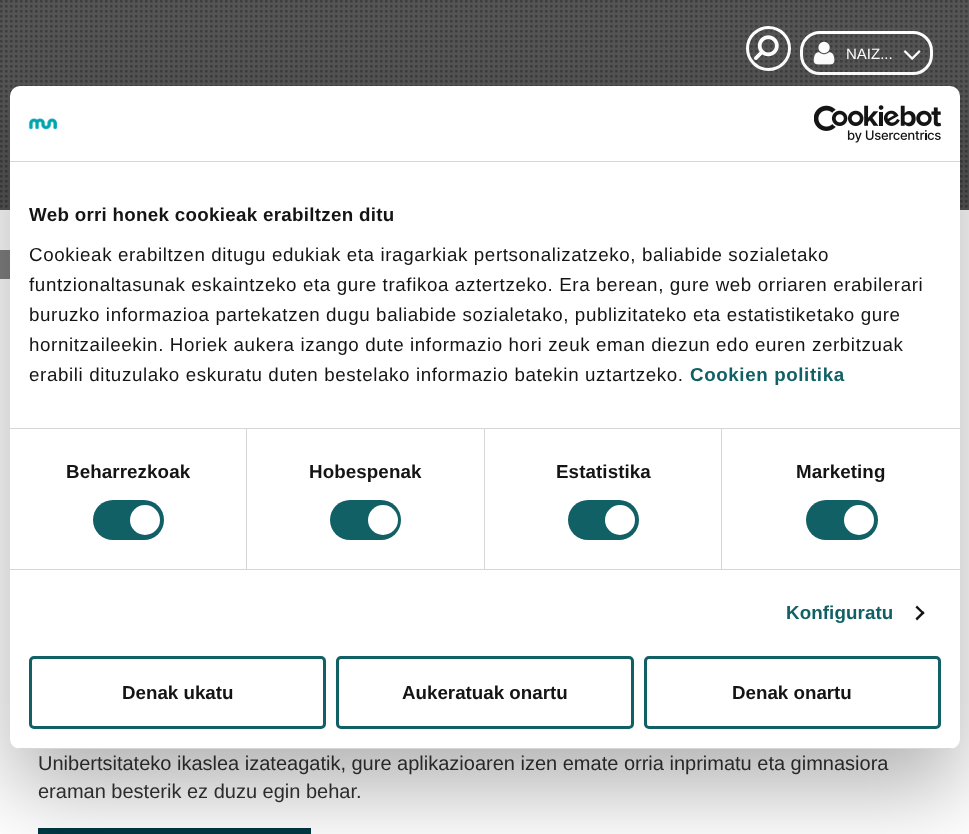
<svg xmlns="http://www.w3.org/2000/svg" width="969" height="834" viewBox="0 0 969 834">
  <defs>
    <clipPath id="clip1"><rect x="10" y="86" width="950" height="663" rx="10"/></clipPath>
  </defs>
  <rect width="100%" height="100%" fill="rgb(255,255,255)"/>
  <rect x="0" y="0" width="969" height="210" fill="rgb(85,85,85)"/>
  <image x="0" y="0" width="968" height="208" href="pic1.png"/>
  <circle cx="768.5" cy="48.5" r="21" fill="none" stroke="rgb(255,255,255)" stroke-width="3"/>
  <image x="754" y="35" width="25" height="25" href="pic2.png"/>
  <rect x="801.5" y="32.5" width="130" height="41" rx="18.5" fill="none" stroke="rgb(255,255,255)" stroke-width="3"/>
  <image x="813" y="41" width="22" height="24" href="pic3.png"/>
  <text x="846" y="59" font-family="Liberation Sans" font-size="15" fill="rgb(255,255,255)">NAIZ...</text>
  <image x="903" y="50" width="18" height="10" href="pic4.png"/>
  <rect x="0" y="250" width="10" height="29" fill="rgb(128,128,128)"/>
  <g font-family="Liberation Sans" font-size="20" fill="rgb(51,51,51)">
    <text>
      <tspan x="38" y="770">Unibertsitateko ikaslea izateagatik, gure aplikazioaren izen emate orria inprimatu eta gimnasiora</tspan>
      <tspan x="38" y="798">eraman besterik ez duzu egin behar.</tspan>
    </text>
  </g>
  <rect x="38" y="828" width="273" height="6" fill="rgb(0,56,67)"/>
  <rect x="10" y="126" width="950" height="663" rx="10" fill="rgba(0,0,0,0.3)" filter="blur(42.5px)"/>
  <rect x="10" y="86" width="950" height="663" rx="10" fill="rgb(255,255,255)"/>
  <rect x="10" y="161" width="950" height="1" fill="rgb(214,214,214)"/>
  <image x="28" y="118" width="30" height="12" href="pic5.png"/>
  <image x="814" y="105" width="127" height="38" href="pic6.png"/>
  <rect x="10" y="428" width="950" height="1" fill="rgb(214,214,214)"/>
  <text x="29" y="221" font-family="Liberation Sans" font-size="18.75" font-weight="bold" letter-spacing="0.3" fill="rgb(20,20,20)">Web orri honek cookieak erabiltzen ditu</text>
  <g font-family="Liberation Sans" font-size="18.75" letter-spacing="0.62" fill="rgb(20,20,20)">
    <text>
      <tspan x="29" y="261">Cookieak erabiltzen ditugu edukiak eta iragarkiak pertsonalizatzeko, baliabide sozialetako</tspan>
      <tspan x="29" y="291">funtzionaltasunak eskaintzeko eta gure trafikoa aztertzeko. Era berean, gure web orriaren erabilerari</tspan>
      <tspan x="29" y="321">buruzko informazioa partekatzen dugu baliabide sozialetako, publizitateko eta estatistiketako gure</tspan>
      <tspan x="29" y="351">hornitzaileekin. Horiek aukera izango dute informazio hori zeuk eman diezun edo euren zerbitzuak</tspan>
      <tspan x="29" y="381">erabili dituzulako eskuratu duten bestelako informazio batekin uztartzeko.</tspan>
    </text>
  </g>
  <text x="690" y="381" font-family="Liberation Sans" font-size="18.75" font-weight="bold" letter-spacing="0.62" fill="rgb(17,96,101)">Cookien politika</text>
  <rect x="10" y="569" width="950" height="1" fill="rgb(214,214,214)"/>
  <rect x="246" y="429" width="1" height="140" fill="rgb(214,214,214)"/>
  <text x="66" y="478" font-family="Liberation Sans" font-size="18.75" font-weight="bold" letter-spacing="0.1" fill="rgb(20,20,20)">Beharrezkoak</text>
  <rect x="93" y="500" width="71" height="40" rx="20" fill="rgb(17,96,101)"/>
  <circle cx="145" cy="520" r="15" fill="rgb(255,255,255)"/>
  <rect x="484" y="429" width="1" height="140" fill="rgb(214,214,214)"/>
  <text x="309" y="478" font-family="Liberation Sans" font-size="18.75" font-weight="bold" letter-spacing="0.1" fill="rgb(20,20,20)">Hobespenak</text>
  <rect x="330" y="500" width="71" height="40" rx="20" fill="rgb(17,96,101)"/>
  <circle cx="383" cy="520" r="15" fill="rgb(255,255,255)"/>
  <rect x="721" y="429" width="1" height="140" fill="rgb(214,214,214)"/>
  <text x="556" y="478" font-family="Liberation Sans" font-size="18.75" font-weight="bold" letter-spacing="0.1" fill="rgb(20,20,20)">Estatistika</text>
  <rect x="568" y="500" width="71" height="40" rx="20" fill="rgb(17,96,101)"/>
  <circle cx="620" cy="520" r="15" fill="rgb(255,255,255)"/>
  <text x="796" y="478" font-family="Liberation Sans" font-size="18.75" font-weight="bold" letter-spacing="0.1" fill="rgb(20,20,20)">Marketing</text>
  <rect x="806" y="500" width="72" height="40" rx="20" fill="rgb(17,96,101)"/>
  <circle cx="859" cy="520" r="15" fill="rgb(255,255,255)"/>
  <text x="786" y="619" font-family="Liberation Sans" font-size="18.75" font-weight="bold" letter-spacing="0.1" fill="rgb(17,96,101)">Konfiguratu</text>
  <path d="M917 605.5L924.5 613L923 614.5L915.5 607.5Z" fill="rgb(20,20,20)"/>
  <path d="M923 611L924.5 613L917 620.5L915.5 618.5Z" fill="rgb(20,20,20)"/>
  <g clip-path="url(#clip1)">
    <rect x="10" y="748" width="950" height="1" fill="rgb(214,214,214)"/>
  </g>
  <rect x="30.5" y="657.5" width="294" height="70" rx="3.5" fill="none" stroke="rgb(17,96,101)" stroke-width="3"/>
  <text x="122" y="699" font-family="Liberation Sans" font-size="18.75" font-weight="bold" fill="rgb(20,20,20)">Denak ukatu</text>
  <rect x="337.5" y="657.5" width="295" height="70" rx="3.5" fill="none" stroke="rgb(17,96,101)" stroke-width="3"/>
  <text x="402" y="699" font-family="Liberation Sans" font-size="18.75" font-weight="bold" fill="rgb(20,20,20)">Aukeratuak onartu</text>
  <rect x="645.5" y="657.5" width="294" height="70" rx="3.5" fill="none" stroke="rgb(17,96,101)" stroke-width="3"/>
  <text x="732" y="699" font-family="Liberation Sans" font-size="18.75" font-weight="bold" fill="rgb(20,20,20)">Denak onartu</text>
</svg>
